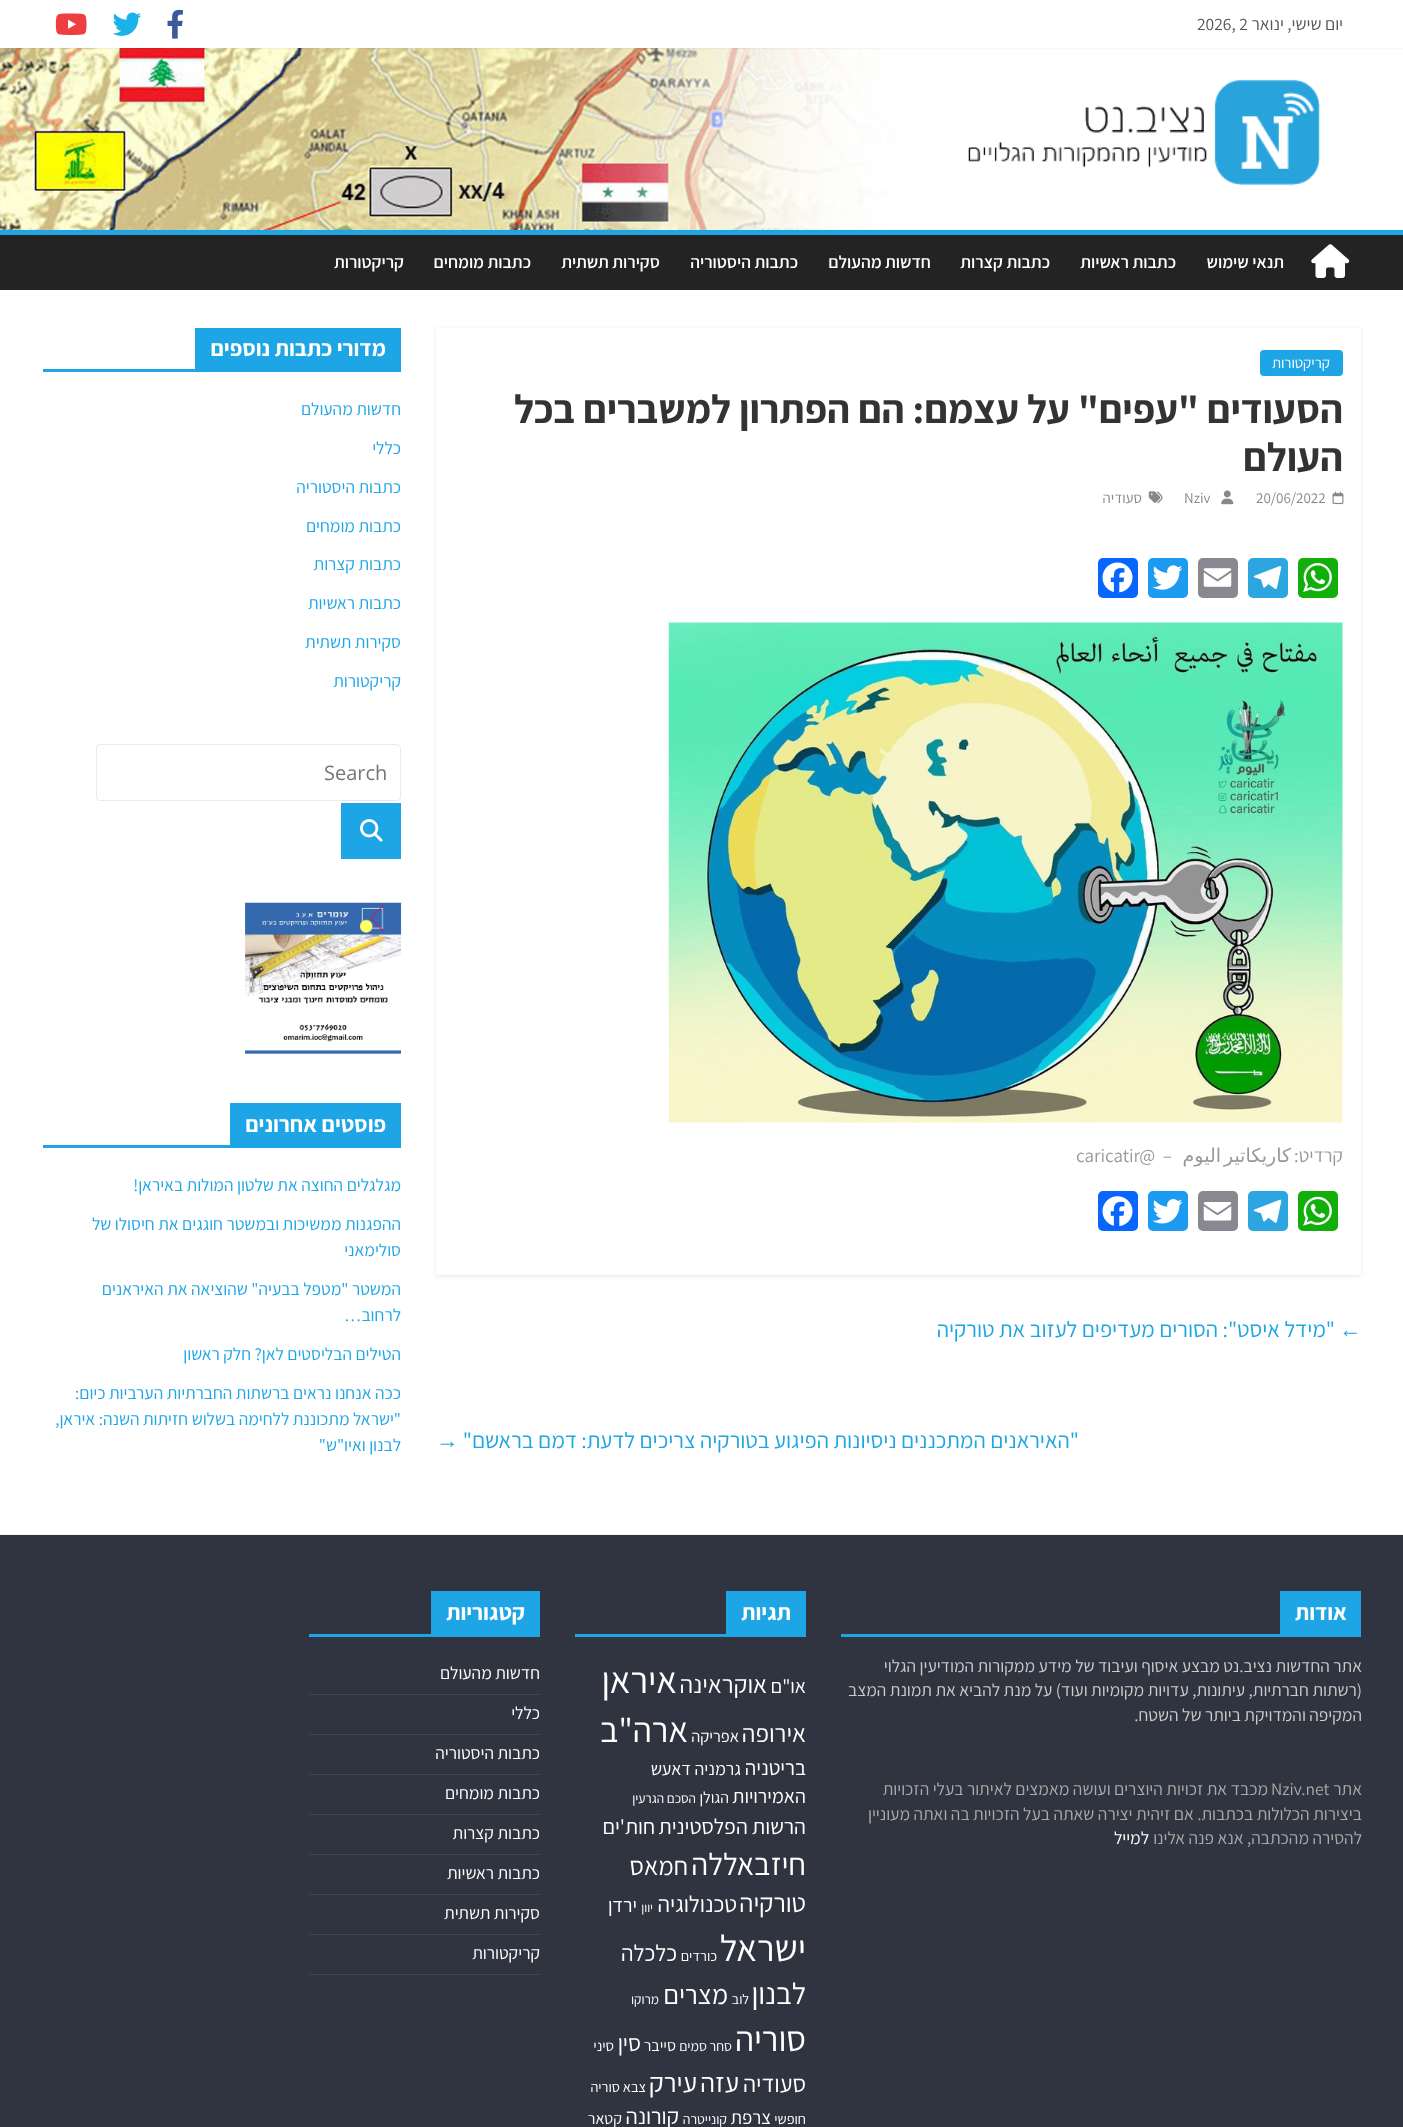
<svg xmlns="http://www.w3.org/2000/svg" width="1403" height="2127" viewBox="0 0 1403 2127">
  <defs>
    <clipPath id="clip1"><path d="M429 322H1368V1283H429ZM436 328H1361V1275H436Z" clip-rule="evenodd"/></clipPath>
  </defs>
  <rect width="100%" height="100%" fill="rgb(255,255,255)"/>
  <image x="0" y="48" width="895" height="182" href="pic1.png"/>
  <rect x="0" y="0" width="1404" height="48" fill="rgba(0,0,0,0.1)" filter="blur(1px)"/>
  <rect x="0" y="0" width="1403" height="48" fill="rgb(255,255,255)"/>
  <text x="1343" y="30" font-family="Assistant" font-size="17.5" direction="rtl" fill="rgb(85,85,85)">יום שישי, ינואר</text>
  <text x="1197" y="30" font-family="Assistant" font-size="17.5" fill="rgb(85,85,85)">2026, 2</text>
  <image x="167" y="9" width="16" height="30" href="pic2.png"/>
  <image x="112" y="12" width="30" height="24" href="pic3.png"/>
  <image x="55" y="13" width="32" height="22" href="pic4.png"/>
  <image x="968" y="79" width="353" height="107" href="pic5.png"/>
  <rect x="0" y="235" width="1403" height="55" fill="rgb(35,35,35)"/>
  <rect x="0" y="230" width="1403" height="5" fill="rgb(30,165,230)"/>
  <image x="1311" y="244" width="39" height="34" href="pic6.png"/>
  <g font-family="Assistant" font-size="17.5" font-weight="600" direction="rtl" fill="rgb(255,255,255)">
    <text x="1284" y="268">תנאי שימוש</text>
    <text x="1176" y="268">כתבות ראשיות</text>
    <text x="1050" y="268">כתבות קצרות</text>
    <text x="931" y="268">חדשות מהעולם</text>
    <text x="798" y="268">כתבות היסטוריה</text>
    <text x="660" y="268">סקירות תשתית</text>
    <text x="531" y="268">כתבות מומחים</text>
    <text x="404" y="268">קריקטורות</text>
  </g>
  <g clip-path="url(#clip1)">
    <rect x="436" y="329" width="925" height="947" fill="rgba(0,0,0,0.1)" filter="blur(2px)"/>
  </g>
  <rect x="1260" y="350" width="83" height="26" rx="4" fill="rgb(30,165,230)"/>
  <text x="1330" y="368" font-family="Assistant" font-size="15" direction="rtl" fill="rgb(255,255,255)">קריקטורות</text>
  <g font-family="Assistant" font-size="40" font-weight="bold" direction="rtl" fill="rgb(51,51,51)">
    <text>
      <tspan x="1343" y="423">הסעודים "עפים" על עצמם: הם הפתרון למשברים בכל</tspan>
      <tspan x="1343" y="471">העולם</tspan>
    </text>
  </g>
  <image x="1332" y="491" width="12" height="14" href="pic7.png"/>
  <text x="1256" y="503" font-family="Assistant" font-size="15" fill="rgb(136,136,136)">20/06/2022</text>
  <image x="1221" y="490" width="13" height="15" href="pic8.png"/>
  <text x="1184" y="503" font-family="Assistant" font-size="15" fill="rgb(136,136,136)">Nziv</text>
  <image x="1148" y="491" width="15" height="13" href="pic9.png"/>
  <text x="1142" y="503" font-family="Assistant" font-size="15" direction="rtl" fill="rgb(136,136,136)">סעודיה</text>
  <rect x="1298" y="558" width="40" height="40" rx="5" fill="rgb(18,175,10)"/>
  <image x="1303" y="563" width="29" height="29" href="pic10.png"/>
  <rect x="1248" y="558" width="40" height="40" rx="5" fill="rgb(44,165,224)"/>
  <image x="1253" y="566" width="29" height="23" href="pic11.png"/>
  <rect x="1198" y="558" width="40" height="40" rx="5" fill="rgb(136,137,144)"/>
  <image x="1203" y="568" width="29" height="19" href="pic12.png"/>
  <rect x="1148" y="558" width="40" height="40" rx="5" fill="rgb(29,155,240)"/>
  <image x="1152" y="565" width="31" height="25" href="pic13.png"/>
  <rect x="1098" y="558" width="40" height="40" rx="5" fill="rgb(8,102,255)"/>
  <image x="1102" y="562" width="31" height="31" href="pic14.png"/>
  <image x="668" y="622" width="675" height="501" href="pic15.png"/>
  <text x="1343" y="1162" font-family="Assistant" font-size="19" direction="rtl" fill="rgb(153,153,153)">קרדיט:</text>
  <g font-family="DejaVu Sans" font-size="19" direction="rtl" fill="rgb(153,153,153)">
    <text x="1291" y="1162">كاريكاتير</text>
    <text x="1221" y="1162">اليوم</text>
  </g>
  <text x="1172" y="1162" font-family="Assistant" font-size="19" direction="rtl" fill="rgb(153,153,153)" xml:space="preserve">–  @</text>
  <text x="1076" y="1162" font-family="Assistant" font-size="19" fill="rgb(153,153,153)">caricatir</text>
  <rect x="1298" y="1191" width="40" height="40" rx="5" fill="rgb(18,175,10)"/>
  <image x="1303" y="1196" width="29" height="30" href="pic16.png"/>
  <rect x="1248" y="1191" width="40" height="40" rx="5" fill="rgb(44,165,224)"/>
  <image x="1253" y="1199" width="29" height="24" href="pic17.png"/>
  <rect x="1198" y="1191" width="40" height="40" rx="5" fill="rgb(136,137,144)"/>
  <image x="1203" y="1202" width="29" height="19" href="pic18.png"/>
  <rect x="1148" y="1191" width="40" height="40" rx="5" fill="rgb(29,155,240)"/>
  <image x="1152" y="1199" width="31" height="25" href="pic19.png"/>
  <rect x="1098" y="1191" width="40" height="40" rx="5" fill="rgb(8,102,255)"/>
  <image x="1102" y="1196" width="31" height="31" href="pic20.png"/>
  <text x="1339" y="1337" font-family="Liberation Serif" font-size="22.5" fill="rgb(30,165,230)">←</text>
  <g font-family="Assistant" font-size="22.5" direction="rtl" fill="rgb(30,165,230)">
    <text x="1335" y="1337">"מידל איסט": הסורים מעדיפים לעזוב את טורקיה</text>
    <text x="1079" y="1448">"האיראנים המתכננים ניסיונות הפיגוע בטורקיה צריכים לדעת: דמם בראשם"</text>
  </g>
  <text x="436" y="1448" font-family="Liberation Serif" font-size="22.5" fill="rgb(30,165,230)">→</text>
  <rect x="43" y="369" width="358" height="3" fill="rgb(30,165,230)"/>
  <rect x="195" y="328" width="206" height="41" fill="rgb(30,165,230)"/>
  <text x="386" y="356" font-family="Assistant" font-size="22.5" font-weight="bold" direction="rtl" fill="rgb(255,255,255)">מדורי כתבות נוספים</text>
  <g font-family="Assistant" font-size="17.5" direction="rtl" fill="rgb(30,165,230)">
    <text x="401" y="415">חדשות מהעולם</text>
    <text x="401" y="454">כללי</text>
    <text x="401" y="493">כתבות היסטוריה</text>
    <text x="401" y="532">כתבות מומחים</text>
    <text x="401" y="570">כתבות קצרות</text>
    <text x="401" y="609">כתבות ראשיות</text>
    <text x="401" y="648">סקירות תשתית</text>
    <text x="401" y="687">קריקטורות</text>
  </g>
  <rect x="96.5" y="744.5" width="304" height="56" rx="3.5" fill="none" stroke="rgb(234,234,234)"/>
  <text x="324" y="780" font-family="Open Sans" font-size="20" fill="rgb(117,117,117)">Search</text>
  <rect x="341" y="803" width="60" height="56" fill="rgb(30,165,230)"/>
  <image x="360" y="819" width="23" height="23" href="pic21.png"/>
  <image x="245" y="902" width="157" height="152" href="pic22.png"/>
  <rect x="43" y="1145" width="358" height="3" fill="rgb(30,165,230)"/>
  <rect x="230" y="1103" width="171" height="42" fill="rgb(30,165,230)"/>
  <text x="386" y="1132" font-family="Assistant" font-size="22.5" font-weight="bold" direction="rtl" fill="rgb(255,255,255)">פוסטים אחרונים</text>
  <g font-family="Assistant" font-size="17.5" direction="rtl" fill="rgb(30,165,230)">
    <text x="401" y="1191">מגלגלים החוצה את שלטון המולות באיראן!</text>
    <text>
      <tspan x="401" y="1230">ההפגנות ממשיכות ובמשטר חוגגים את חיסולו של</tspan>
      <tspan x="401" y="1256">סולימאני</tspan>
    </text>
    <text>
      <tspan x="401" y="1295">המשטר "מטפל בבעיה" שהוציאה את האיראנים</tspan>
      <tspan x="401" y="1321">לרחוב…</tspan>
    </text>
    <text x="401" y="1360">הטילים הבליסטים לאן?</text>
    <text x="251" y="1360">חלק ראשון</text>
    <text>
      <tspan x="401" y="1399">ככה אנחנו נראים ברשתות החברתיות הערביות כיום:</tspan>
      <tspan x="401" y="1425">"ישראל מתכוננת ללחימה בשלוש חזיתות השנה: איראן,</tspan>
      <tspan x="401" y="1451">לבנון ואיו"ש"</tspan>
    </text>
  </g>
  <rect x="0" y="1535" width="1403" height="592" fill="rgb(48,52,64)"/>
  <rect x="0" y="1534" width="1403" height="1" fill="rgb(242,242,242)"/>
  <rect x="841" y="1634" width="520" height="3" fill="rgb(30,165,230)"/>
  <rect x="1280" y="1591" width="81" height="43" fill="rgb(30,165,230)"/>
  <text x="1347" y="1620" font-family="Assistant" font-size="22.5" font-weight="bold" direction="rtl" fill="rgb(255,255,255)">אודות</text>
  <g font-family="Assistant" font-size="17.5" direction="rtl" fill="rgb(204,204,204)">
    <text>
      <tspan x="1362" y="1672">אתר החדשות נציב.נט מבצע איסוף ועיבוד של מידע ממקורות המודיעין הגלוי</tspan>
      <tspan x="1362" y="1696">(רשתות חברתיות, עיתונות, עדויות מקומיות ועוד) על מנת להביא את תמונת המצב</tspan>
      <tspan x="1362" y="1721">המקיפה והמדויקת ביותר של השטח.</tspan>
    </text>
  </g>
  <text x="1362" y="1795" font-family="Assistant" font-size="17.5" direction="rtl" fill="rgb(170,170,170)">אתר</text>
  <text x="1271" y="1795" font-family="Assistant" font-size="17.5" fill="rgb(170,170,170)">Nziv.net</text>
  <g font-family="Assistant" font-size="17.5" direction="rtl" fill="rgb(170,170,170)">
    <text x="1268" y="1795">מכבד את זכויות היוצרים ועושה מאמצים לאיתור בעלי הזכויות</text>
    <text>
      <tspan x="1362" y="1820">ביצירות הכלולות בכתבות. אם זיהית יצירה שאתה בעל הזכויות בה ואתה מעוניין</tspan>
      <tspan x="1362" y="1844">להסירה מהכתבה, אנא פנה אלינו</tspan>
    </text>
  </g>
  <text x="1149" y="1844" font-family="Assistant" font-size="17.5" direction="rtl" fill="rgb(255,255,255)">למייל</text>
  <rect x="575" y="1634" width="231" height="3" fill="rgb(30,165,230)"/>
  <rect x="726" y="1591" width="80" height="43" fill="rgb(30,165,230)"/>
  <text x="791" y="1620" font-family="Assistant" font-size="22.5" font-weight="bold" direction="rtl" fill="rgb(255,255,255)">תגיות</text>
  <text x="806" y="1693" font-family="Assistant" font-size="20" direction="rtl" fill="rgb(255,255,255)">או"ם</text>
  <text x="767" y="1693" font-family="Assistant" font-size="25" direction="rtl" fill="rgb(255,255,255)">אוקראינה</text>
  <text x="677" y="1693" font-family="Assistant" font-size="37" direction="rtl" fill="rgb(255,255,255)">איראן</text>
  <text x="806" y="1742" font-family="Assistant" font-size="25" direction="rtl" fill="rgb(255,255,255)">אירופה</text>
  <text x="739" y="1742" font-family="Assistant" font-size="16.5" direction="rtl" fill="rgb(255,255,255)">אפריקה</text>
  <text x="688" y="1742" font-family="Assistant" font-size="35" direction="rtl" fill="rgb(255,255,255)">ארה"ב</text>
  <text x="806" y="1775" font-family="Assistant" font-size="21" direction="rtl" fill="rgb(255,255,255)">בריטניה</text>
  <g font-family="Assistant" font-size="18" direction="rtl" fill="rgb(255,255,255)">
    <text x="741" y="1775">גרמניה</text>
    <text x="691" y="1775">דאעש</text>
  </g>
  <text x="806" y="1803" font-family="Assistant" font-size="20" direction="rtl" fill="rgb(255,255,255)">האמירויות</text>
  <text x="729" y="1803" font-family="Assistant" font-size="16" direction="rtl" fill="rgb(255,255,255)">הגולן</text>
  <text x="696" y="1803" font-family="Assistant" font-size="13.5" direction="rtl" fill="rgb(255,255,255)">הסכם הגרעין</text>
  <text x="806" y="1834" font-family="Assistant" font-size="21.75" direction="rtl" fill="rgb(255,255,255)">הרשות הפלסטינית</text>
  <text x="655" y="1834" font-family="Assistant" font-size="21.5" direction="rtl" fill="rgb(255,255,255)">חות'ים</text>
  <text x="806" y="1875" font-family="Assistant" font-size="31" direction="rtl" fill="rgb(255,255,255)">חיזבאללה</text>
  <text x="688" y="1875" font-family="Assistant" font-size="25.5" direction="rtl" fill="rgb(255,255,255)">חמאס</text>
  <text x="806" y="1912" font-family="Assistant" font-size="26" direction="rtl" fill="rgb(255,255,255)">טורקיה</text>
  <text x="737" y="1912" font-family="Assistant" font-size="23" direction="rtl" fill="rgb(255,255,255)">טכנולוגיה</text>
  <text x="653" y="1912" font-family="Assistant" font-size="13" direction="rtl" fill="rgb(255,255,255)">יוון</text>
  <text x="637" y="1912" font-family="Assistant" font-size="20" direction="rtl" fill="rgb(255,255,255)">ירדן</text>
  <text x="806" y="1961" font-family="Assistant" font-size="37" direction="rtl" fill="rgb(255,255,255)">ישראל</text>
  <text x="717" y="1961" font-family="Assistant" font-size="14.5" direction="rtl" fill="rgb(255,255,255)">כורדים</text>
  <text x="677" y="1961" font-family="Assistant" font-size="23" direction="rtl" fill="rgb(255,255,255)">כלכלה</text>
  <text x="806" y="2004" font-family="Assistant" font-size="30" direction="rtl" fill="rgb(255,255,255)">לבנון</text>
  <text x="749" y="2004" font-family="Assistant" font-size="14" direction="rtl" fill="rgb(255,255,255)">לוב</text>
  <text x="728" y="2004" font-family="Assistant" font-size="27" direction="rtl" fill="rgb(255,255,255)">מצרים</text>
  <text x="659" y="2004" font-family="Assistant" font-size="13.5" direction="rtl" fill="rgb(255,255,255)">מרוקו</text>
  <text x="806" y="2051" font-family="Assistant" font-size="35" direction="rtl" fill="rgb(255,255,255)">סוריה</text>
  <text x="732" y="2051" font-family="Assistant" font-size="14" direction="rtl" fill="rgb(255,255,255)">סחר סמים</text>
  <text x="676" y="2051" font-family="Assistant" font-size="16" direction="rtl" fill="rgb(255,255,255)">סייבר</text>
  <text x="641" y="2051" font-family="Assistant" font-size="23" direction="rtl" fill="rgb(255,255,255)">סין</text>
  <text x="614" y="2051" font-family="Assistant" font-size="15" direction="rtl" fill="rgb(255,255,255)">סיני</text>
  <text x="806" y="2092" font-family="Assistant" font-size="24" direction="rtl" fill="rgb(255,255,255)">סעודיה</text>
  <g font-family="Assistant" font-size="27" direction="rtl" fill="rgb(255,255,255)">
    <text x="739" y="2092">עזה</text>
    <text x="697" y="2092">עירק</text>
  </g>
  <g font-family="Assistant" font-size="14.5" direction="rtl" fill="rgb(255,255,255)">
    <text x="646" y="2092">צבא סוריה</text>
    <text x="806" y="2124">חופשי</text>
  </g>
  <text x="771" y="2124" font-family="Assistant" font-size="19" direction="rtl" fill="rgb(255,255,255)">צרפת</text>
  <text x="727" y="2124" font-family="Assistant" font-size="14" direction="rtl" fill="rgb(255,255,255)">קונייטרה</text>
  <text x="679" y="2124" font-family="Assistant" font-size="22.5" direction="rtl" fill="rgb(255,255,255)">קורונה</text>
  <text x="622" y="2124" font-family="Assistant" font-size="16" direction="rtl" fill="rgb(255,255,255)">קטאר</text>
  <rect x="309" y="1634" width="231" height="3" fill="rgb(30,165,230)"/>
  <rect x="431" y="1591" width="109" height="43" fill="rgb(30,165,230)"/>
  <text x="525" y="1620" font-family="Assistant" font-size="22.5" font-weight="bold" direction="rtl" fill="rgb(255,255,255)">קטגוריות</text>
  <rect x="309" y="1694" width="231" height="1" fill="rgb(68,68,68)"/>
  <text x="540" y="1679" font-family="Assistant" font-size="17.5" direction="rtl" fill="rgb(255,255,255)">חדשות מהעולם</text>
  <rect x="309" y="1734" width="231" height="1" fill="rgb(68,68,68)"/>
  <text x="540" y="1719" font-family="Assistant" font-size="17.5" direction="rtl" fill="rgb(255,255,255)">כללי</text>
  <rect x="309" y="1774" width="231" height="1" fill="rgb(68,68,68)"/>
  <text x="540" y="1759" font-family="Assistant" font-size="17.5" direction="rtl" fill="rgb(255,255,255)">כתבות היסטוריה</text>
  <rect x="309" y="1814" width="231" height="1" fill="rgb(68,68,68)"/>
  <text x="540" y="1799" font-family="Assistant" font-size="17.5" direction="rtl" fill="rgb(255,255,255)">כתבות מומחים</text>
  <rect x="309" y="1854" width="231" height="1" fill="rgb(68,68,68)"/>
  <text x="540" y="1839" font-family="Assistant" font-size="17.5" direction="rtl" fill="rgb(255,255,255)">כתבות קצרות</text>
  <rect x="309" y="1894" width="231" height="1" fill="rgb(68,68,68)"/>
  <text x="540" y="1879" font-family="Assistant" font-size="17.5" direction="rtl" fill="rgb(255,255,255)">כתבות ראשיות</text>
  <rect x="309" y="1934" width="231" height="1" fill="rgb(68,68,68)"/>
  <text x="540" y="1919" font-family="Assistant" font-size="17.5" direction="rtl" fill="rgb(255,255,255)">סקירות תשתית</text>
  <rect x="309" y="1974" width="231" height="1" fill="rgb(68,68,68)"/>
  <text x="540" y="1959" font-family="Assistant" font-size="17.5" direction="rtl" fill="rgb(255,255,255)">קריקטורות</text>
</svg>
